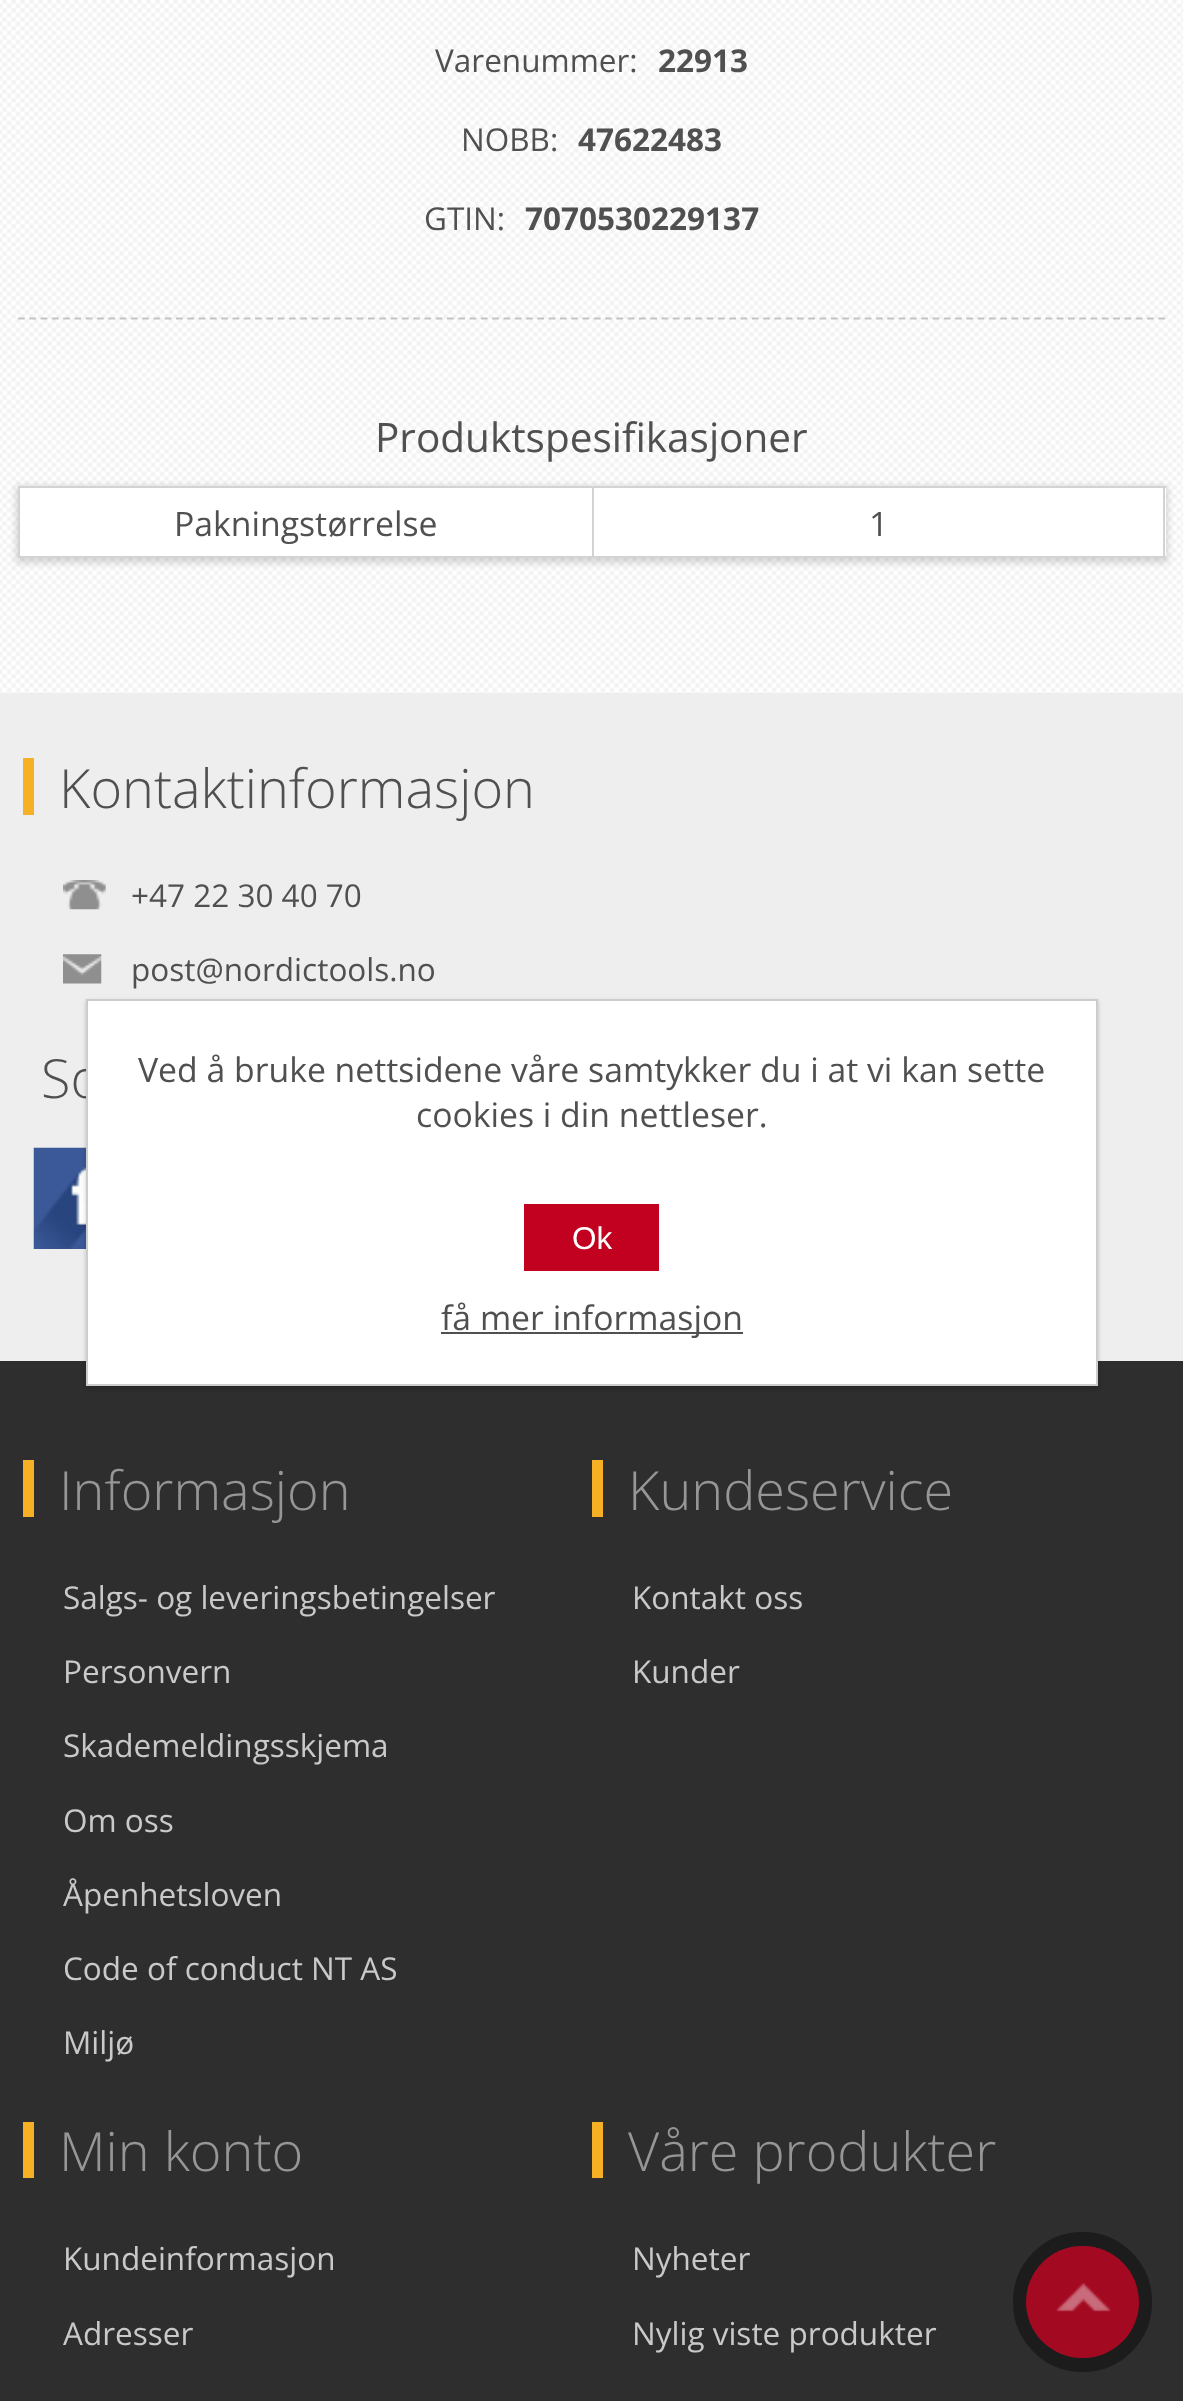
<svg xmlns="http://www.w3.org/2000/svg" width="1183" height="2401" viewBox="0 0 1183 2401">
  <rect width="100%" height="100%" fill="rgb(255,255,255)"/>
  <image x="0" y="0" width="1183" height="693" href="pic1.png"/>
  <path d="M18 318.5H1165.5" fill="none" stroke="rgb(195,195,195)" stroke-width="2.2" stroke-dasharray="6.75 4.54"/>
  <text x="435" y="72" font-family="Open Sans" font-size="31.5" fill="rgb(80,80,80)">Varenummer:</text>
  <text x="658" y="72" font-family="Open Sans" font-size="31.5" font-weight="bold" fill="rgb(80,80,80)">22913</text>
  <text x="461" y="151" font-family="Open Sans" font-size="31.5" fill="rgb(80,80,80)">NOBB:</text>
  <text x="578" y="151" font-family="Open Sans" font-size="31.5" font-weight="bold" fill="rgb(80,80,80)">47622483</text>
  <text x="424" y="230" font-family="Open Sans" font-size="31.5" fill="rgb(80,80,80)">GTIN:</text>
  <text x="525" y="230" font-family="Open Sans" font-size="31.5" font-weight="bold" fill="rgb(80,80,80)">7070530229137</text>
  <text x="375" y="452" font-family="Open Sans" font-size="40.5" fill="rgb(80,80,80)">Produktspesifikasjoner</text>
  <rect x="16" y="486" width="1152" height="77" fill="rgba(0,0,0,0.15)" filter="blur(3.5px)"/>
  <rect x="20" y="488" width="572" height="68" fill="rgb(255,255,255)"/>
  <rect x="592" y="486" width="574" height="2" fill="rgb(211,211,211)"/>
  <rect x="594" y="488" width="572" height="68" fill="rgb(255,255,255)"/>
  <rect x="1163" y="486" width="2" height="72" fill="rgb(211,211,211)"/>
  <rect x="592" y="556" width="574" height="2" fill="rgb(211,211,211)"/>
  <rect x="592" y="486" width="2" height="72" fill="rgb(211,211,211)"/>
  <rect x="18" y="486" width="576" height="2" fill="rgb(211,211,211)"/>
  <rect x="18" y="556" width="576" height="2" fill="rgb(211,211,211)"/>
  <rect x="18" y="486" width="2" height="72" fill="rgb(211,211,211)"/>
  <g font-family="Open Sans" font-size="33.75" fill="rgb(80,80,80)">
    <text x="174" y="536">Pakningstørrelse</text>
    <text x="869" y="536">1</text>
  </g>
  <rect x="0" y="693" width="1183" height="668" fill="rgb(238,238,238)"/>
  <rect x="23" y="758" width="11" height="57" fill="rgb(246,176,38)"/>
  <text x="59" y="808" font-family="Open Sans" font-size="54" font-weight="300" fill="rgb(80,80,80)">Kontaktinformasjon</text>
  <image x="63" y="880" width="43" height="30" href="pic2.png"/>
  <text x="131" y="907" font-family="Open Sans" font-size="31.5" fill="rgb(80,80,80)">+47 22 30 40 70</text>
  <image x="63" y="954" width="39" height="30" href="pic3.png"/>
  <text x="131" y="981" font-family="Open Sans" font-size="31.5" fill="rgb(80,80,80)">post@nordictools.no</text>
  <text x="41" y="1098" font-family="Open Sans" font-size="54" font-weight="300" fill="rgb(80,80,80)">So</text>
  <image x="33" y="1147" width="53" height="102" href="pic4.png"/>
  <rect x="0" y="1361" width="1183" height="1040" fill="rgb(46,46,46)"/>
  <rect x="23" y="1460" width="11" height="57" fill="rgb(246,176,38)"/>
  <text x="59" y="1510" font-family="Open Sans" font-size="54" font-weight="300" fill="rgb(150,150,150)">Informasjon</text>
  <g font-family="Open Sans" font-size="31.5" fill="rgb(201,201,201)">
    <text x="63" y="1609">Salgs- og leveringsbetingelser</text>
    <text x="63" y="1683">Personvern</text>
    <text x="63" y="1757">Skademeldingsskjema</text>
    <text x="63" y="1832">Om oss</text>
    <text x="63" y="1906">Åpenhetsloven</text>
    <text x="63" y="1980">Code of conduct NT AS</text>
    <text x="63" y="2054">Miljø</text>
  </g>
  <rect x="592" y="1460" width="11" height="57" fill="rgb(246,176,38)"/>
  <text x="628" y="1510" font-family="Open Sans" font-size="54" font-weight="300" fill="rgb(150,150,150)">Kundeservice</text>
  <g font-family="Open Sans" font-size="31.5" fill="rgb(201,201,201)">
    <text x="632" y="1609">Kontakt oss</text>
    <text x="632" y="1683">Kunder</text>
  </g>
  <rect x="23" y="2122" width="11" height="56" fill="rgb(246,176,38)"/>
  <text x="59" y="2171" font-family="Open Sans" font-size="54" font-weight="300" fill="rgb(150,150,150)">Min konto</text>
  <g font-family="Open Sans" font-size="31.5" fill="rgb(201,201,201)">
    <text x="63" y="2270">Kundeinformasjon</text>
    <text x="63" y="2345">Adresser</text>
  </g>
  <rect x="592" y="2122" width="11" height="56" fill="rgb(246,176,38)"/>
  <text x="628" y="2171" font-family="Open Sans" font-size="54" font-weight="300" fill="rgb(150,150,150)">Våre produkter</text>
  <g font-family="Open Sans" font-size="31.5" fill="rgb(201,201,201)">
    <text x="632" y="2270">Nyheter</text>
    <text x="632" y="2345">Nylig viste produkter</text>
  </g>
  <rect x="86" y="1001" width="1012" height="387" fill="rgba(0,0,0,0.2)" filter="blur(2px)"/>
  <rect x="87" y="1000" width="1010" height="385" fill="rgb(255,255,255)" stroke="rgb(204,204,204)" stroke-width="2"/>
  <g font-family="Open Sans" font-size="33.75" fill="rgb(80,80,80)">
    <text x="138" y="1082">Ved å bruke nettsidene våre samtykker du i at vi kan sette</text>
    <text x="416" y="1127">cookies i din nettleser.</text>
  </g>
  <rect x="524" y="1204" width="135" height="67" fill="rgb(194,0,31)"/>
  <text x="572" y="1249" font-family="Liberation Sans" font-size="31.5" fill="rgb(255,255,255)">Ok</text>
  <rect x="441" y="1332" width="302" height="2" fill="rgb(80,80,80)"/>
  <text x="441" y="1330" font-family="Open Sans" font-size="33.75" fill="rgb(80,80,80)">få mer informasjon</text>
  <rect x="1020" y="2239" width="125" height="126" rx="62.5" fill="none" stroke="rgb(28,28,28)" stroke-width="14"/>
  <rect x="1026" y="2246" width="113" height="112" rx="56" fill="rgb(164,9,34)"/>
  <image x="1055" y="2283" width="56" height="29" href="pic5.png"/>
</svg>
